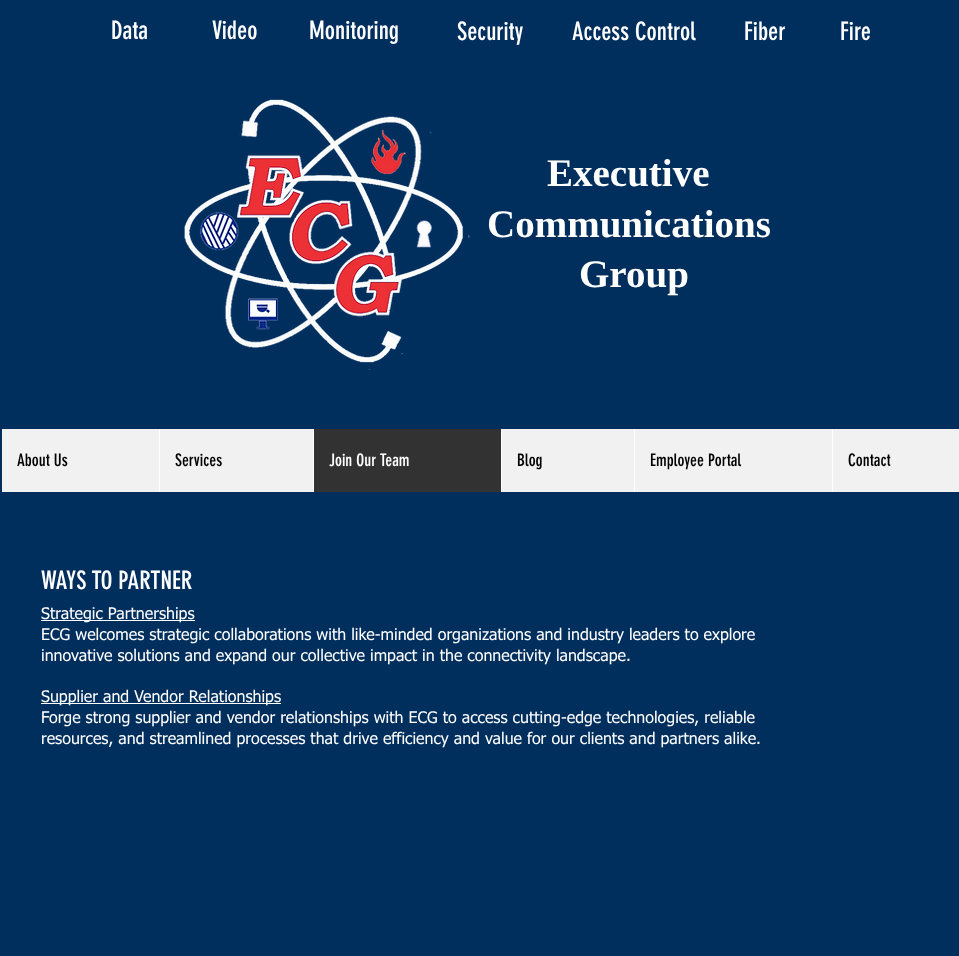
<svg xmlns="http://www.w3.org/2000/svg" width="959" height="956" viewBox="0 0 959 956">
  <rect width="100%" height="100%" fill="rgb(0,46,93)"/>
  <g font-family="'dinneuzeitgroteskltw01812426'" font-size="25" fill="rgb(255,255,255)">
    <text x="111" y="39">Data</text>
    <text x="212" y="39">Video</text>
    <text x="309" y="39">Monitoring</text>
    <text x="457" y="40">Security</text>
    <text x="572" y="40">Access Control</text>
    <text x="744" y="40">Fiber</text>
    <text x="840" y="40">Fire</text>
  </g>
  <image x="184" y="99" width="286" height="271" href="pic1.png"/>
  <g font-family="Liberation Serif" font-size="39" font-weight="bold" fill="rgb(255,255,255)">
    <text x="547" y="186">Executive</text>
    <text x="487" y="237">Communications</text>
    <text x="579" y="287">Group</text>
  </g>
  <rect x="2" y="429" width="957" height="63" fill="rgb(241,241,241)"/>
  <text x="17" y="466" font-family="'dinneuzeitgroteskltw01812426'" font-size="17" fill="rgb(0,0,0)">About Us</text>
  <rect x="159" y="429" width="1" height="63" fill="rgb(255,255,255)"/>
  <text x="175" y="466" font-family="'dinneuzeitgroteskltw01812426'" font-size="17" fill="rgb(0,0,0)">Services</text>
  <rect x="314" y="429" width="187" height="63" fill="rgb(50,50,50)"/>
  <rect x="313" y="429" width="1" height="63" fill="rgb(255,255,255)"/>
  <text x="329" y="466" font-family="'dinneuzeitgroteskltw01812426'" font-size="17" fill="rgb(255,255,255)">Join Our Team</text>
  <rect x="501" y="429" width="1" height="63" fill="rgb(255,255,255)"/>
  <text x="517" y="466" font-family="'dinneuzeitgroteskltw01812426'" font-size="17" fill="rgb(0,0,0)">Blog</text>
  <rect x="634" y="429" width="1" height="63" fill="rgb(255,255,255)"/>
  <text x="650" y="466" font-family="'dinneuzeitgroteskltw01812426'" font-size="17" fill="rgb(0,0,0)">Employee Portal</text>
  <rect x="832" y="429" width="1" height="63" fill="rgb(255,255,255)"/>
  <text x="848" y="466" font-family="'dinneuzeitgroteskltw01812426'" font-size="17" fill="rgb(0,0,0)">Contact</text>
  <text x="41" y="589" font-family="'dinneuzeitgroteskltw01812426'" font-size="25" fill="rgb(255,255,255)">WAYS TO PARTNER</text>
  <rect x="41" y="620" width="154" height="1" fill="rgb(255,255,255)"/>
  <g font-family="tahoma" font-size="16" fill="rgb(255,255,255)">
    <text>
      <tspan x="41" y="619">Strategic Partnerships</tspan>
      <tspan x="41" y="640">ECG welcomes strategic collaborations with like-minded organizations and industry leaders to explore</tspan>
      <tspan x="41" y="661">innovative solutions and expand our collective impact in the connectivity landscape.</tspan>
    </text>
  </g>
  <rect x="41" y="703" width="240" height="1" fill="rgb(255,255,255)"/>
  <g font-family="tahoma" font-size="16" fill="rgb(255,255,255)">
    <text>
      <tspan x="41" y="702">Supplier and Vendor Relationships</tspan>
      <tspan x="41" y="723">Forge strong supplier and vendor relationships with ECG to access cutting-edge technologies, reliable</tspan>
      <tspan x="41" y="744">resources, and streamlined processes that drive efficiency and value for our clients and partners alike.</tspan>
    </text>
  </g>
</svg>
